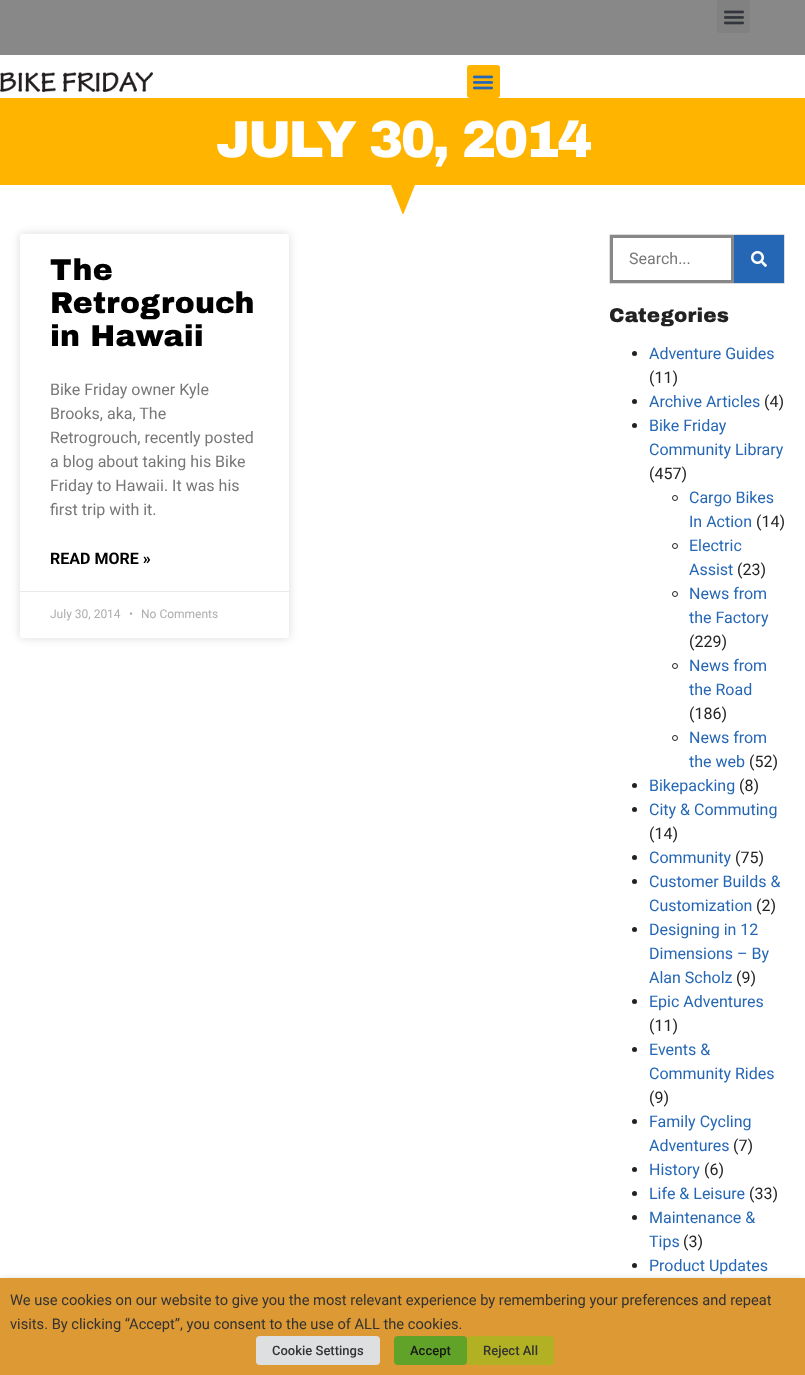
<svg xmlns="http://www.w3.org/2000/svg" width="805" height="1375" viewBox="0 0 805 1375">
  <rect width="100%" height="100%" fill="rgb(255,255,255)"/>
  <rect x="0" y="0" width="805" height="55" fill="rgb(136,136,136)"/>
  <rect x="717" y="0" width="33" height="33" rx="3" fill="rgb(129,129,129)"/>
  <image x="724" y="10" width="20" height="15" href="pic1.png"/>
  <image x="0" y="72" width="153" height="20" href="pic2.png"/>
  <rect x="467" y="65" width="33" height="33" rx="3" fill="rgb(255,180,0)"/>
  <image x="472" y="75" width="22" height="15" href="pic3.png"/>
  <rect x="0" y="98" width="805" height="116" fill="rgb(255,180,0)"/>
  <text x="216" y="157" font-family="Archivo Black" font-size="52" font-weight="900" letter-spacing="-2.75" fill="rgb(255,255,255)">JULY 30, 2014</text>
  <path d="M415 185L403 215L391 185H0V215H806V185" fill="rgb(255,255,255)"/>
  <rect x="20" y="234" width="269" height="404" rx="3" fill="rgba(0,0,0,0.15)" filter="blur(5px)"/>
  <rect x="20" y="234" width="269" height="404" rx="3" fill="rgb(255,255,255)"/>
  <g font-family="Archivo Black" font-size="30" font-weight="900" letter-spacing="0.1" fill="rgb(0,0,0)">
    <text>
      <tspan x="50" y="280">The</tspan>
      <tspan x="50" y="313">Retrogrouch</tspan>
      <tspan x="50" y="346">in Hawaii</tspan>
    </text>
  </g>
  <g font-family="Roboto" font-size="16" fill="rgb(119,119,119)">
    <text>
      <tspan x="50" y="395">Bike Friday owner Kyle</tspan>
      <tspan x="50" y="419">Brooks, aka, The</tspan>
      <tspan x="50" y="443">Retrogrouch, recently posted</tspan>
      <tspan x="50" y="467">a blog about taking his Bike</tspan>
      <tspan x="50" y="491">Friday to Hawaii. It was his</tspan>
      <tspan x="50" y="515">first trip with it.</tspan>
    </text>
  </g>
  <text x="50" y="564" font-family="Roboto" font-size="16" font-weight="bold" fill="rgb(0,0,0)">READ MORE »</text>
  <rect x="20" y="591" width="269" height="1" fill="rgb(234,234,234)"/>
  <g font-family="Roboto" font-size="12" fill="rgb(173,173,173)">
    <text x="50" y="618">July 30, 2014</text>
    <text x="129" y="618">•</text>
    <text x="141" y="618">No Comments</text>
  </g>
  <rect x="609.5" y="234.5" width="175" height="49" rx="0.5" fill="none" stroke="rgb(221,221,221)"/>
  <rect x="611.5" y="236.5" width="121" height="45" fill="none" stroke="rgb(136,136,136)" stroke-width="3"/>
  <text x="629" y="264" font-family="Roboto" font-size="16" fill="rgb(119,119,119)">Search...</text>
  <rect x="734" y="235" width="50" height="48" fill="rgb(37,103,181)"/>
  <image x="751" y="251" width="16" height="16" href="pic4.png"/>
  <text x="609" y="322" font-family="Archivo Black" font-size="20" font-weight="900" letter-spacing="0.1" fill="rgb(34,34,34)">Categories</text>
  <circle cx="634.5" cy="353.5" r="2.5" fill="rgb(34,34,34)"/>
  <text x="649" y="359" font-family="Roboto" font-size="16" fill="rgb(37,103,181)">Adventure Guides</text>
  <text x="649" y="383" font-family="Roboto" font-size="16" fill="rgb(34,34,34)">(11)</text>
  <circle cx="634.5" cy="401.5" r="2.5" fill="rgb(34,34,34)"/>
  <text x="649" y="407" font-family="Roboto" font-size="16" fill="rgb(37,103,181)">Archive Articles</text>
  <text x="764" y="407" font-family="Roboto" font-size="16" fill="rgb(34,34,34)">(4)</text>
  <circle cx="634.5" cy="425.5" r="2.5" fill="rgb(34,34,34)"/>
  <g font-family="Roboto" font-size="16" fill="rgb(37,103,181)">
    <text>
      <tspan x="649" y="431">Bike Friday</tspan>
      <tspan x="649" y="455">Community Library</tspan>
    </text>
  </g>
  <text x="649" y="479" font-family="Roboto" font-size="16" fill="rgb(34,34,34)">(457)</text>
  <circle cx="675" cy="498" r="2.5" fill="none" stroke="rgb(34,34,34)"/>
  <g font-family="Roboto" font-size="16" fill="rgb(37,103,181)">
    <text>
      <tspan x="689" y="503">Cargo Bikes</tspan>
      <tspan x="689" y="527">In Action</tspan>
    </text>
  </g>
  <text x="756" y="527" font-family="Roboto" font-size="16" fill="rgb(34,34,34)">(14)</text>
  <circle cx="675" cy="546" r="2.5" fill="none" stroke="rgb(34,34,34)"/>
  <g font-family="Roboto" font-size="16" fill="rgb(37,103,181)">
    <text>
      <tspan x="689" y="551">Electric</tspan>
      <tspan x="689" y="575">Assist</tspan>
    </text>
  </g>
  <text x="737" y="575" font-family="Roboto" font-size="16" fill="rgb(34,34,34)">(23)</text>
  <circle cx="675" cy="594" r="2.5" fill="none" stroke="rgb(34,34,34)"/>
  <g font-family="Roboto" font-size="16" fill="rgb(37,103,181)">
    <text>
      <tspan x="689" y="599">News from</tspan>
      <tspan x="689" y="623">the Factory</tspan>
    </text>
  </g>
  <text x="689" y="647" font-family="Roboto" font-size="16" fill="rgb(34,34,34)">(229)</text>
  <circle cx="675" cy="666" r="2.5" fill="none" stroke="rgb(34,34,34)"/>
  <g font-family="Roboto" font-size="16" fill="rgb(37,103,181)">
    <text>
      <tspan x="689" y="671">News from</tspan>
      <tspan x="689" y="695">the Road</tspan>
    </text>
  </g>
  <text x="689" y="719" font-family="Roboto" font-size="16" fill="rgb(34,34,34)">(186)</text>
  <circle cx="675" cy="738" r="2.5" fill="none" stroke="rgb(34,34,34)"/>
  <g font-family="Roboto" font-size="16" fill="rgb(37,103,181)">
    <text>
      <tspan x="689" y="743">News from</tspan>
      <tspan x="689" y="767">the web</tspan>
    </text>
  </g>
  <text x="749" y="767" font-family="Roboto" font-size="16" fill="rgb(34,34,34)">(52)</text>
  <circle cx="634.5" cy="785.5" r="2.5" fill="rgb(34,34,34)"/>
  <text x="649" y="791" font-family="Roboto" font-size="16" fill="rgb(37,103,181)">Bikepacking</text>
  <text x="739" y="791" font-family="Roboto" font-size="16" fill="rgb(34,34,34)">(8)</text>
  <circle cx="634.5" cy="809.5" r="2.5" fill="rgb(34,34,34)"/>
  <text x="649" y="815" font-family="Roboto" font-size="16" fill="rgb(37,103,181)">City &amp; Commuting</text>
  <text x="649" y="839" font-family="Roboto" font-size="16" fill="rgb(34,34,34)">(14)</text>
  <circle cx="634.5" cy="857.5" r="2.5" fill="rgb(34,34,34)"/>
  <text x="649" y="863" font-family="Roboto" font-size="16" fill="rgb(37,103,181)">Community</text>
  <text x="735" y="863" font-family="Roboto" font-size="16" fill="rgb(34,34,34)">(75)</text>
  <circle cx="634.5" cy="881.5" r="2.5" fill="rgb(34,34,34)"/>
  <g font-family="Roboto" font-size="16" fill="rgb(37,103,181)">
    <text>
      <tspan x="649" y="887">Customer Builds &amp;</tspan>
      <tspan x="649" y="911">Customization</tspan>
    </text>
  </g>
  <text x="756" y="911" font-family="Roboto" font-size="16" fill="rgb(34,34,34)">(2)</text>
  <circle cx="634.5" cy="929.5" r="2.5" fill="rgb(34,34,34)"/>
  <g font-family="Roboto" font-size="16" fill="rgb(37,103,181)">
    <text>
      <tspan x="649" y="935">Designing in 12</tspan>
      <tspan x="649" y="959">Dimensions – By</tspan>
      <tspan x="649" y="983">Alan Scholz</tspan>
    </text>
  </g>
  <text x="736" y="983" font-family="Roboto" font-size="16" fill="rgb(34,34,34)">(9)</text>
  <circle cx="634.5" cy="1001.5" r="2.5" fill="rgb(34,34,34)"/>
  <text x="649" y="1007" font-family="Roboto" font-size="16" fill="rgb(37,103,181)">Epic Adventures</text>
  <text x="649" y="1031" font-family="Roboto" font-size="16" fill="rgb(34,34,34)">(11)</text>
  <circle cx="634.5" cy="1049.5" r="2.5" fill="rgb(34,34,34)"/>
  <g font-family="Roboto" font-size="16" fill="rgb(37,103,181)">
    <text>
      <tspan x="649" y="1055">Events &amp;</tspan>
      <tspan x="649" y="1079">Community Rides</tspan>
    </text>
  </g>
  <text x="649" y="1103" font-family="Roboto" font-size="16" fill="rgb(34,34,34)">(9)</text>
  <circle cx="634.5" cy="1121.5" r="2.5" fill="rgb(34,34,34)"/>
  <g font-family="Roboto" font-size="16" fill="rgb(37,103,181)">
    <text>
      <tspan x="649" y="1127">Family Cycling</tspan>
      <tspan x="649" y="1151">Adventures</tspan>
    </text>
  </g>
  <text x="733" y="1151" font-family="Roboto" font-size="16" fill="rgb(34,34,34)">(7)</text>
  <circle cx="634.5" cy="1169.5" r="2.5" fill="rgb(34,34,34)"/>
  <text x="649" y="1175" font-family="Roboto" font-size="16" fill="rgb(37,103,181)">History</text>
  <text x="704" y="1175" font-family="Roboto" font-size="16" fill="rgb(34,34,34)">(6)</text>
  <circle cx="634.5" cy="1193.5" r="2.5" fill="rgb(34,34,34)"/>
  <text x="649" y="1199" font-family="Roboto" font-size="16" fill="rgb(37,103,181)">Life &amp; Leisure</text>
  <text x="749" y="1199" font-family="Roboto" font-size="16" fill="rgb(34,34,34)">(33)</text>
  <circle cx="634.5" cy="1217.5" r="2.5" fill="rgb(34,34,34)"/>
  <g font-family="Roboto" font-size="16" fill="rgb(37,103,181)">
    <text>
      <tspan x="649" y="1223">Maintenance &amp;</tspan>
      <tspan x="649" y="1247">Tips</tspan>
    </text>
  </g>
  <text x="683" y="1247" font-family="Roboto" font-size="16" fill="rgb(34,34,34)">(3)</text>
  <circle cx="634.5" cy="1265.5" r="2.5" fill="rgb(34,34,34)"/>
  <text x="649" y="1271" font-family="Roboto" font-size="16" fill="rgb(37,103,181)">Product Updates</text>
  <rect x="0" y="1283" width="805" height="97" fill="rgba(0,0,0,0.5)" filter="blur(5px)"/>
  <rect x="0" y="1278" width="805" height="97" fill="rgb(221,153,51)"/>
  <g font-family="Roboto" font-size="14.67" fill="rgb(51,51,51)">
    <text>
      <tspan x="10" y="1305">We use cookies on our website to give you the most relevant experience by remembering your preferences and repeat</tspan>
      <tspan x="10" y="1329">visits. By clicking “Accept”, you consent to the use of ALL the cookies.</tspan>
    </text>
  </g>
  <rect x="256" y="1336" width="124" height="29" rx="4" fill="rgb(222,223,224)"/>
  <text x="272" y="1355" font-family="Roboto" font-size="13" font-weight="500" fill="rgb(51,51,51)">Cookie Settings</text>
  <rect x="394" y="1336" width="73" height="29" rx="4" fill="rgb(97,162,41)"/>
  <text x="410" y="1355" font-family="Roboto" font-size="13" font-weight="500" fill="rgb(22,22,22)">Accept</text>
  <rect x="467" y="1336" width="87" height="29" rx="4" fill="rgb(178,176,35)"/>
  <text x="483" y="1355" font-family="Roboto" font-size="13" font-weight="500" fill="rgb(51,51,51)">Reject All</text>
</svg>
